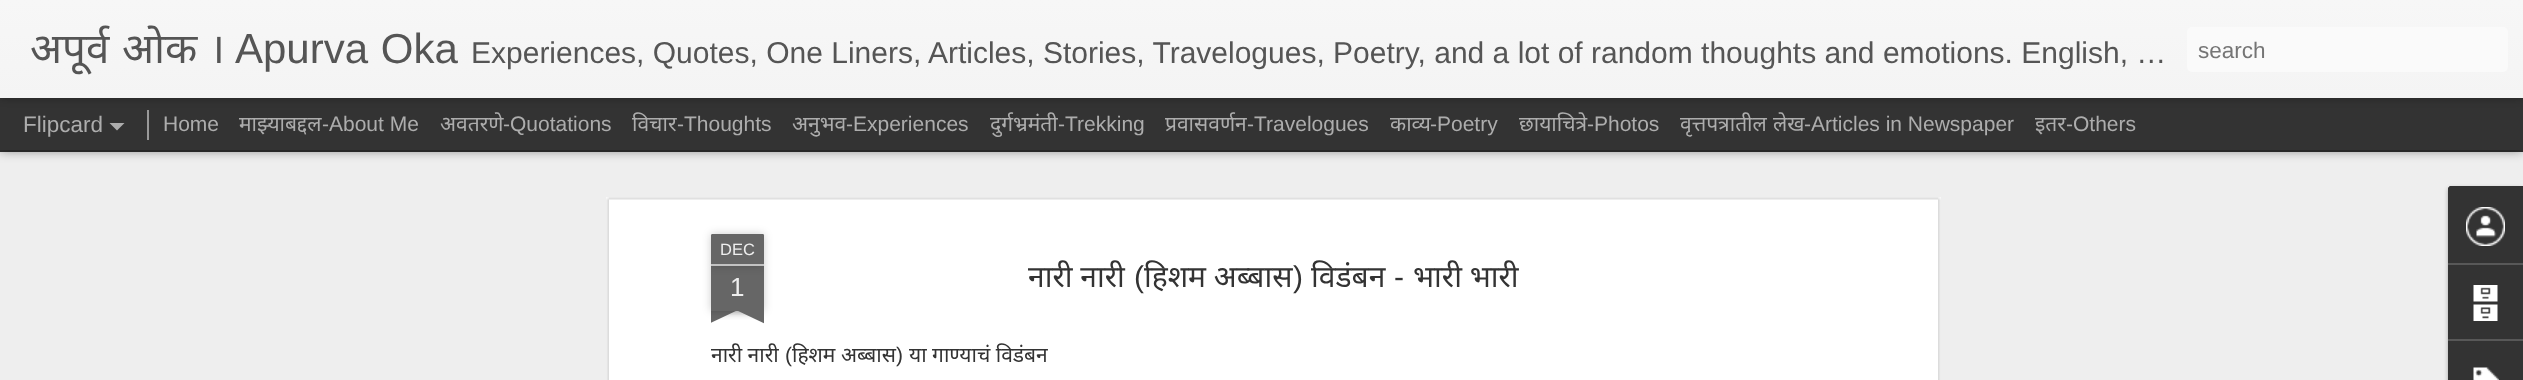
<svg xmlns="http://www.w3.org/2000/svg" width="2523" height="380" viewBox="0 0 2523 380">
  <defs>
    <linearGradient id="g1" gradientUnits="userSpaceOnUse" x1="0" y1="0" x2="0" y2="98"><stop offset="0" stop-color="rgb(247,247,247)"/><stop offset="1" stop-color="rgb(244,244,244)"/></linearGradient>
    <clipPath id="clip1"><rect x="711" y="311" width="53" height="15"/></clipPath>
    <clipPath id="clip2"><rect x="711" y="311" width="53" height="15"/></clipPath>
  </defs>
  <rect width="100%" height="100%" fill="rgb(51,51,51)"/>
  <rect x="0" y="152" width="2523" height="228" fill="rgb(238,238,238)"/>
  <rect x="0" y="98" width="2523" height="52" fill="rgba(0,0,0,0.5)" filter="blur(6px)"/>
  <rect x="0" y="98" width="2523" height="52" fill="rgb(51,51,51)"/>
  <rect x="147" y="110" width="2" height="30" fill="rgb(153,153,153)"/>
  <rect x="0" y="0" width="2523" height="98" fill="rgba(0,0,0,0.3)" filter="blur(4px)"/>
  <rect x="0" y="0" width="2523" height="98" fill="url(#g1)"/>
  <g font-family="Noto Sans" font-size="42" fill="rgb(85,85,85)">
    <text x="30" y="63">अपूर्व</text>
    <text x="122" y="63">ओक</text>
    <text x="209" y="63">।</text>
  </g>
  <text x="235" y="63" word-spacing="1" font-family="Liberation Sans" font-size="42" fill="rgb(85,85,85)">Apurva Oka</text>
  <text x="471" y="63" font-family="Liberation Sans" font-size="30" fill="rgb(85,85,85)">Experiences, Quotes, One Liners, Articles, Stories, Travelogues, Poetry, and a lot of random thoughts and emotions. English, …</text>
  <rect x="2187" y="27" width="321" height="45" rx="5" fill="rgb(250,250,250)"/>
  <text x="2198" y="58" font-family="Liberation Sans" font-size="22.5" fill="rgb(117,117,117)">search</text>
  <text x="23" y="132" font-family="Liberation Sans" font-size="22.5" fill="rgb(173,173,173)">Flipcard</text>
  <path d="M109.5 123H124.5L117 130.5Z" fill="rgb(173,173,173)"/>
  <text x="163" y="131" font-family="Liberation Sans" font-size="21" fill="rgb(173,173,173)">Home</text>
  <text x="239" y="131" font-family="Noto Sans" font-size="21" fill="rgb(173,173,173)">माझ्याबद्दल</text>
  <text x="322" y="131" font-family="Liberation Sans" font-size="21" fill="rgb(173,173,173)">-About Me</text>
  <text x="440" y="131" font-family="Noto Sans" font-size="21" fill="rgb(173,173,173)">अवतरणे</text>
  <text x="503" y="131" font-family="Liberation Sans" font-size="21" fill="rgb(173,173,173)">-Quotations</text>
  <text x="632" y="131" font-family="Noto Sans" font-size="21" fill="rgb(173,173,173)">विचार</text>
  <text x="677" y="131" font-family="Liberation Sans" font-size="21" fill="rgb(173,173,173)">-Thoughts</text>
  <text x="792" y="131" font-family="Noto Sans" font-size="21" fill="rgb(173,173,173)">अनुभव</text>
  <text x="846" y="131" font-family="Liberation Sans" font-size="21" fill="rgb(173,173,173)">-Experiences</text>
  <text x="990" y="131" font-family="Noto Sans" font-size="21" fill="rgb(173,173,173)">दुर्गभ्रमंती</text>
  <text x="1058" y="131" font-family="Liberation Sans" font-size="21" fill="rgb(173,173,173)">-Trekking</text>
  <text x="1165" y="131" font-family="Noto Sans" font-size="21" fill="rgb(173,173,173)">प्रवासवर्णन</text>
  <text x="1247" y="131" font-family="Liberation Sans" font-size="21" fill="rgb(173,173,173)">-Travelogues</text>
  <text x="1390" y="131" font-family="Noto Sans" font-size="21" fill="rgb(173,173,173)">काव्य</text>
  <text x="1430" y="131" font-family="Liberation Sans" font-size="21" fill="rgb(173,173,173)">-Poetry</text>
  <text x="1519" y="131" font-family="Noto Sans" font-size="21" fill="rgb(173,173,173)">छायाचित्रे</text>
  <text x="1587" y="131" font-family="Liberation Sans" font-size="21" fill="rgb(173,173,173)">-Photos</text>
  <g font-family="Noto Sans" font-size="21" fill="rgb(173,173,173)">
    <text x="1680" y="131">वृत्तपत्रातील</text>
    <text x="1773" y="131">लेख</text>
  </g>
  <text x="1804" y="131" font-family="Liberation Sans" font-size="21" fill="rgb(173,173,173)">-Articles in Newspaper</text>
  <text x="2035" y="131" font-family="Noto Sans" font-size="21" fill="rgb(173,173,173)">इतर</text>
  <text x="2066" y="131" font-family="Liberation Sans" font-size="21" fill="rgb(173,173,173)">-Others</text>
  <rect x="606" y="197" width="1335" height="183" fill="rgb(255,255,255)"/>
  <image x="606" y="197" width="1335" height="183" href="pic1.png"/>
  <rect x="711" y="266" width="53" height="45" fill="rgba(0,0,0,0.2)" filter="blur(4px)"/>
  <rect x="711" y="266" width="53" height="45" fill="rgb(102,102,102)"/>
  <rect x="711" y="234" width="53" height="32" rx="1.5" fill="rgba(0,0,0,0.2)" filter="blur(4px)"/>
  <path d="M712.5 234H762.5C763.5 234 764 234.5 764 235.5V266H711V235.5C711 234.5 711.5 234 712.5 234Z" fill="rgb(102,102,102)"/>
  <rect x="711" y="264" width="53" height="2" fill="rgb(194,194,194)"/>
  <text x="720" y="255" font-family="Liberation Sans" font-size="16.5" fill="rgb(238,238,238)">DEC</text>
  <text x="730" y="296" font-family="Liberation Sans" font-size="26" fill="rgb(238,238,238)">1</text>
  <g clip-path="url(#clip1)">
    <rect x="698" y="296" width="75" height="15" fill="rgba(0,0,0,0.2)" filter="blur(4px)"/>
  </g>
  <g clip-path="url(#clip2)">
    <path d="M698 312L766 280L772 294L704 326Z" fill="rgb(102,102,102)"/>
  </g>
  <g clip-path="url(#clip1)">
    <rect x="702" y="296" width="75" height="15" fill="rgba(0,0,0,0.2)" filter="blur(4px)"/>
  </g>
  <g clip-path="url(#clip2)">
    <path d="M709 280L777 312L770 326L702 294Z" fill="rgb(102,102,102)"/>
  </g>
  <text x="1028" y="287" font-family="Noto Sans" font-size="30" fill="rgb(51,51,51)">नारी नारी</text>
  <text x="1134" y="287" font-family="Liberation Sans" font-size="30" fill="rgb(51,51,51)">(</text>
  <text x="1144" y="287" font-family="Noto Sans" font-size="30" fill="rgb(51,51,51)">हिशम अब्बास</text>
  <text x="1293" y="287" font-family="Liberation Sans" font-size="30" fill="rgb(51,51,51)">)</text>
  <text x="1311" y="287" font-family="Noto Sans" font-size="30" fill="rgb(51,51,51)">विडंबन</text>
  <text x="1394" y="287" font-family="Liberation Sans" font-size="30" fill="rgb(51,51,51)">-</text>
  <text x="1413" y="287" font-family="Noto Sans" font-size="30" fill="rgb(51,51,51)">भारी भारी</text>
  <text x="711" y="362" font-family="Noto Sans" font-size="21" fill="rgb(51,51,51)">नारी नारी</text>
  <text x="785" y="362" font-family="Liberation Sans" font-size="21" fill="rgb(51,51,51)">(</text>
  <text x="792" y="362" font-family="Noto Sans" font-size="21" fill="rgb(51,51,51)">हिशम अब्बास</text>
  <text x="896" y="362" font-family="Liberation Sans" font-size="21" fill="rgb(51,51,51)">)</text>
  <text x="909" y="362" font-family="Noto Sans" font-size="21" fill="rgb(51,51,51)">या गाण्याचं विडंबन</text>
  <rect x="2448" y="188" width="75" height="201" rx="3" fill="rgba(0,0,0,0.3)" filter="blur(2px)"/>
  <path d="M2451 186H2523V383H2451C2449.5 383 2448 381.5 2448 380V189C2448 187.5 2449.5 186 2451 186Z" fill="rgb(51,51,51)"/>
  <path d="M2451 186H2523V263H2448V189C2448 187.5 2449.5 186 2451 186Z" fill="rgb(51,51,51)"/>
  <image x="2466" y="207" width="39" height="39" href="pic2.png"/>
  <rect x="2448" y="263" width="75" height="2" fill="rgb(88,88,88)"/>
  <image x="2473" y="285" width="25" height="36" href="pic3.png"/>
  <rect x="2448" y="339" width="75" height="2" fill="rgb(88,88,88)"/>
  <image x="2473" y="367" width="26" height="13" href="pic4.png"/>
</svg>
